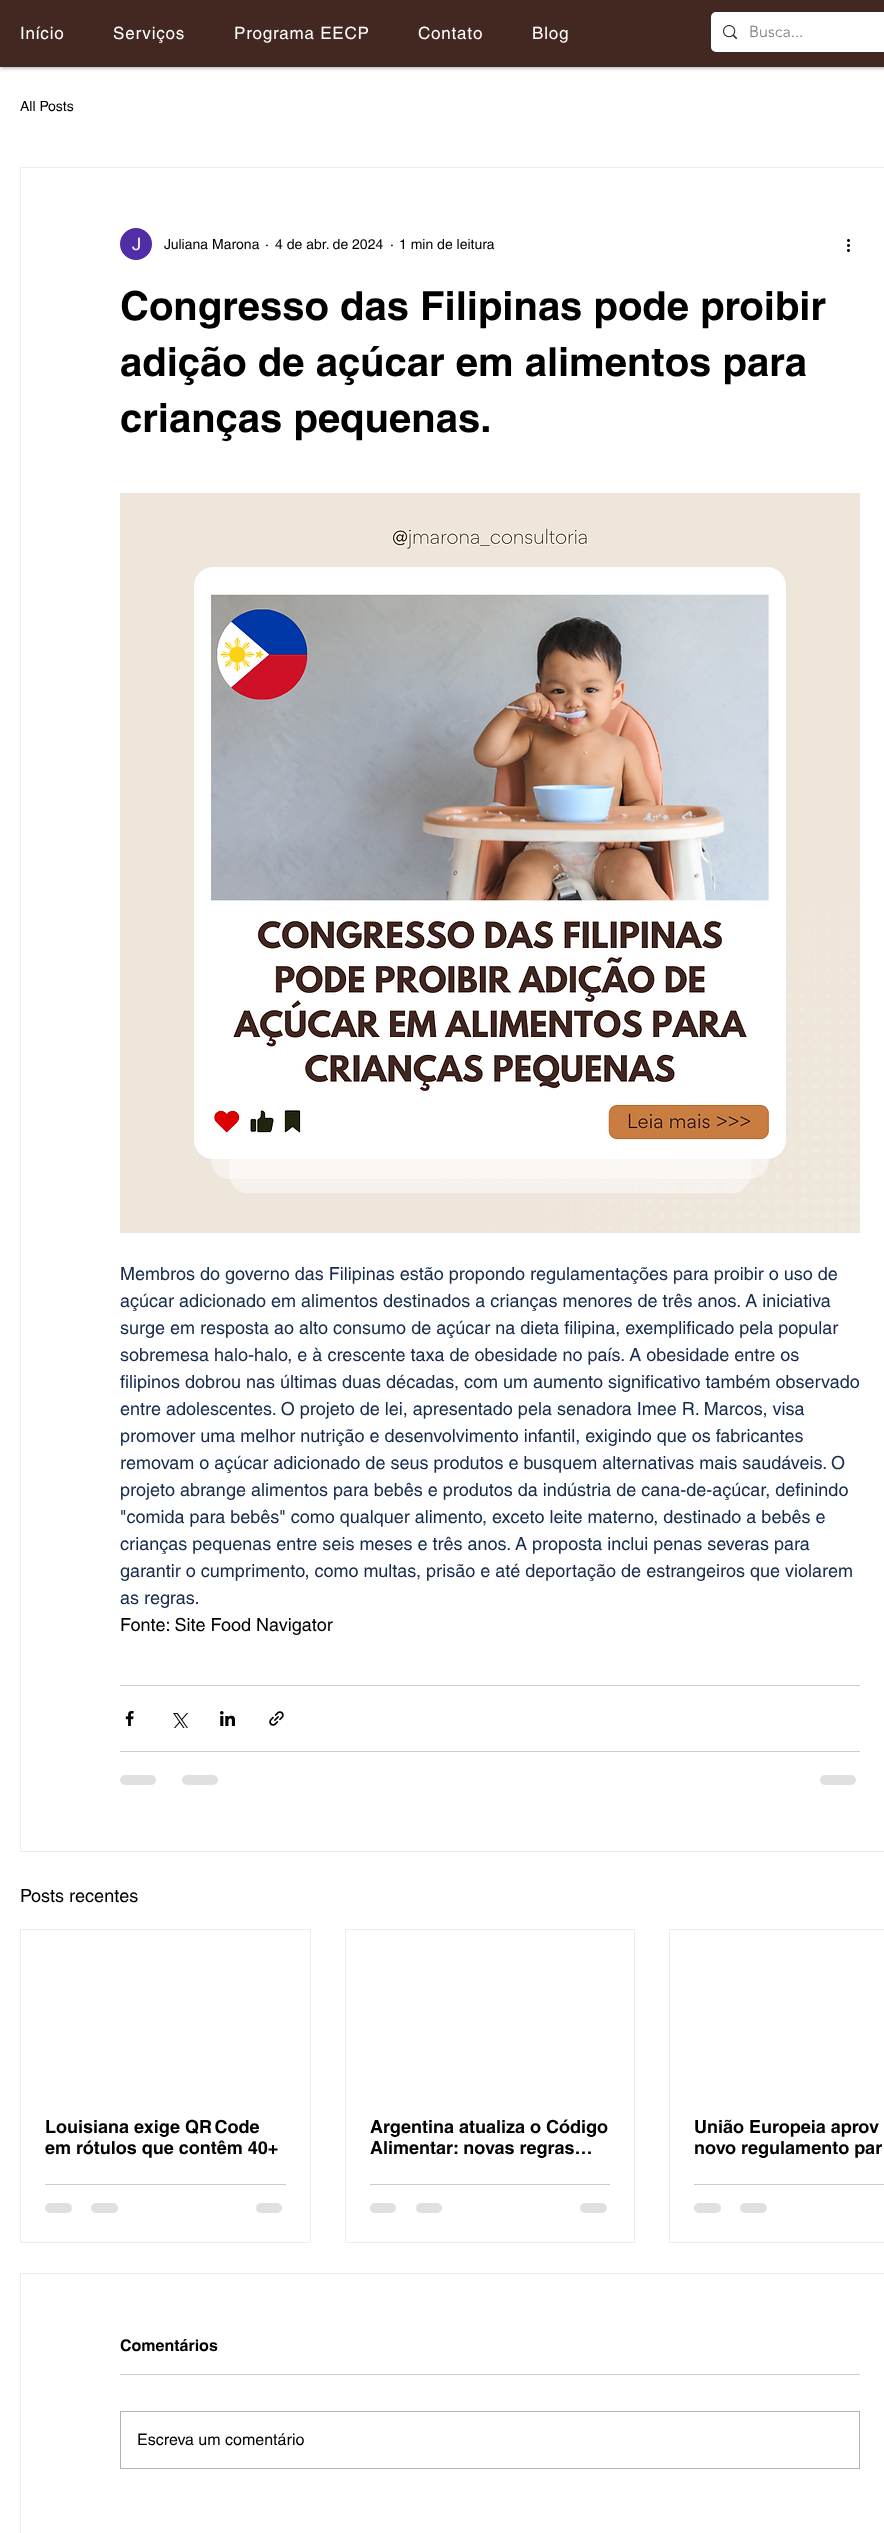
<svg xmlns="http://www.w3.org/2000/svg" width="884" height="2533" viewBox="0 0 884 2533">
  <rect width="100%" height="100%" fill="rgb(255,255,255)"/>
  <rect x="0" y="0" width="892" height="67" fill="rgba(0,0,0,0.5)" filter="blur(2.5px)"/>
  <rect x="0" y="0" width="884" height="67" fill="rgb(66,40,33)"/>
  <g font-family="helvetica" font-size="17" letter-spacing="0.8" fill="rgb(255,255,255)">
    <text x="20" y="39">Início</text>
    <text x="113" y="39">Serviços</text>
    <text x="234" y="39">Programa EECP</text>
    <text x="418" y="39">Contato</text>
    <text x="532" y="39">Blog</text>
  </g>
  <rect x="710.5" y="11.5" width="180" height="41" rx="5.5" fill="none" stroke="rgb(51,44,35)"/>
  <rect x="711" y="12" width="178" height="40" rx="5" fill="rgb(255,255,255)"/>
  <image x="723" y="25" width="14" height="14" href="pic1.png"/>
  <text x="749" y="37" font-family="'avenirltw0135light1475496'" font-size="16" font-weight="300" fill="rgb(120,120,120)">Busca...</text>
  <text x="20" y="111" font-family="helvetica" font-size="14" fill="rgb(0,0,0)">All Posts</text>
  <rect x="20.5" y="167.5" width="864" height="1684" fill="none" stroke="rgb(238,236,236)"/>
  <image x="120" y="228" width="32" height="32" href="pic2.png"/>
  <g font-family="helvetica" font-size="14" fill="rgb(0,0,0)">
    <text x="164" y="249">Juliana Marona</text>
    <text x="265" y="249">·</text>
    <text x="275" y="249">4 de abr. de 2024</text>
    <text x="390" y="249">·</text>
    <text x="399" y="249">1 min de leitura</text>
  </g>
  <image x="847" y="239" width="3" height="13" href="pic3.png"/>
  <g font-family="helvetica" font-size="40" font-weight="bold" fill="rgb(0,0,0)">
    <text>
      <tspan x="120" y="320">Congresso das Filipinas pode proibir</tspan>
      <tspan x="120" y="376">adição de açúcar em alimentos para</tspan>
      <tspan x="120" y="432">crianças pequenas.</tspan>
    </text>
  </g>
  <image x="120" y="493" width="740" height="740" href="pic4.png"/>
  <g font-family="helvetica" font-size="18" fill="rgb(23,43,77)">
    <text>
      <tspan x="120" y="1280">Membros do governo das Filipinas estão propondo regulamentações para proibir o uso de</tspan>
      <tspan x="120" y="1307">açúcar adicionado em alimentos destinados a crianças menores de três anos. A iniciativa</tspan>
      <tspan x="120" y="1334">surge em resposta ao alto consumo de açúcar na dieta filipina, exemplificado pela popular</tspan>
      <tspan x="120" y="1361">sobremesa halo-halo, e à crescente taxa de obesidade no país. A obesidade entre os</tspan>
      <tspan x="120" y="1388">filipinos dobrou nas últimas duas décadas, com um aumento significativo também observado</tspan>
      <tspan x="120" y="1415">entre adolescentes. O projeto de lei, apresentado pela senadora Imee R. Marcos, visa</tspan>
      <tspan x="120" y="1442">promover uma melhor nutrição e desenvolvimento infantil, exigindo que os fabricantes</tspan>
      <tspan x="120" y="1469">removam o açúcar adicionado de seus produtos e busquem alternativas mais saudáveis. O</tspan>
      <tspan x="120" y="1496">projeto abrange alimentos para bebês e produtos da indústria de cana-de-açúcar, definindo</tspan>
      <tspan x="120" y="1523">"comida para bebês" como qualquer alimento, exceto leite materno, destinado a bebês e</tspan>
      <tspan x="120" y="1550">crianças pequenas entre seis meses e três anos. A proposta inclui penas severas para</tspan>
      <tspan x="120" y="1577">garantir o cumprimento, como multas, prisão e até deportação de estrangeiros que violarem</tspan>
      <tspan x="120" y="1604">as regras.</tspan>
    </text>
  </g>
  <text x="120" y="1631" font-family="helvetica" font-size="18" fill="rgb(0,0,0)">Fonte: Site Food Navigator</text>
  <rect x="120" y="1685" width="740" height="1" fill="rgb(204,204,204)"/>
  <image x="125" y="1711" width="9" height="15" href="pic5.png"/>
  <image x="173" y="1713" width="15" height="15" href="pic6.png"/>
  <image x="220" y="1711" width="15" height="15" href="pic7.png"/>
  <image x="269" y="1711" width="15" height="15" href="pic8.png"/>
  <rect x="120" y="1751" width="740" height="1" fill="rgb(204,204,204)"/>
  <rect x="120" y="1775" width="36" height="10" rx="5" fill="rgb(224,224,224)"/>
  <rect x="182" y="1775" width="36" height="10" rx="5" fill="rgb(224,224,224)"/>
  <rect x="820" y="1775" width="36" height="10" rx="5" fill="rgb(224,224,224)"/>
  <text x="20" y="1902" font-family="helvetica" font-size="18" fill="rgb(0,0,0)">Posts recentes</text>
  <rect x="20.5" y="1929.5" width="290" height="313" fill="none" stroke="rgb(238,236,236)"/>
  <g font-family="helvetica" font-size="18" font-weight="bold" fill="rgb(0,0,0)">
    <text>
      <tspan x="45" y="2133">Louisiana exige QR Code</tspan>
      <tspan x="45" y="2154">em rótulos que contêm 40+</tspan>
    </text>
  </g>
  <rect x="45" y="2184" width="241" height="1" fill="rgb(204,204,204)"/>
  <rect x="45" y="2203" width="27" height="10" rx="5" fill="rgb(224,224,224)"/>
  <rect x="91" y="2203" width="27" height="10" rx="5" fill="rgb(224,224,224)"/>
  <rect x="256" y="2203" width="26" height="10" rx="5" fill="rgb(224,224,224)"/>
  <rect x="345.5" y="1929.5" width="289" height="313" fill="none" stroke="rgb(238,236,236)"/>
  <g font-family="helvetica" font-size="18" font-weight="bold" fill="rgb(0,0,0)">
    <text>
      <tspan x="370" y="2133">Argentina atualiza o Código</tspan>
      <tspan x="370" y="2154">Alimentar: novas regras…</tspan>
    </text>
  </g>
  <rect x="370" y="2184" width="240" height="1" fill="rgb(204,204,204)"/>
  <rect x="370" y="2203" width="26" height="10" rx="5" fill="rgb(224,224,224)"/>
  <rect x="416" y="2203" width="26" height="10" rx="5" fill="rgb(224,224,224)"/>
  <rect x="580" y="2203" width="27" height="10" rx="5" fill="rgb(224,224,224)"/>
  <rect x="669.5" y="1929.5" width="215" height="313" fill="none" stroke="rgb(238,236,236)"/>
  <g font-family="helvetica" font-size="18" font-weight="bold" fill="rgb(0,0,0)">
    <text>
      <tspan x="694" y="2133">União Europeia aprov</tspan>
      <tspan x="694" y="2154">novo regulamento par</tspan>
    </text>
  </g>
  <rect x="694" y="2184" width="190" height="1" fill="rgb(204,204,204)"/>
  <rect x="694" y="2203" width="27" height="10" rx="5" fill="rgb(224,224,224)"/>
  <rect x="740" y="2203" width="27" height="10" rx="5" fill="rgb(224,224,224)"/>
  <rect x="20.5" y="2273.5" width="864" height="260" fill="none" stroke="rgb(238,236,236)"/>
  <text x="120" y="2351" font-family="helvetica" font-size="16" font-weight="bold" fill="rgb(0,0,0)">Comentários</text>
  <rect x="120" y="2374" width="740" height="1" fill="rgb(204,204,204)"/>
  <rect x="120.5" y="2411.5" width="739" height="57" fill="none" stroke="rgb(179,179,179)"/>
  <text x="137" y="2445" font-family="helvetica" font-size="16" fill="rgb(0,0,0)">Escreva um comentário</text>
</svg>
